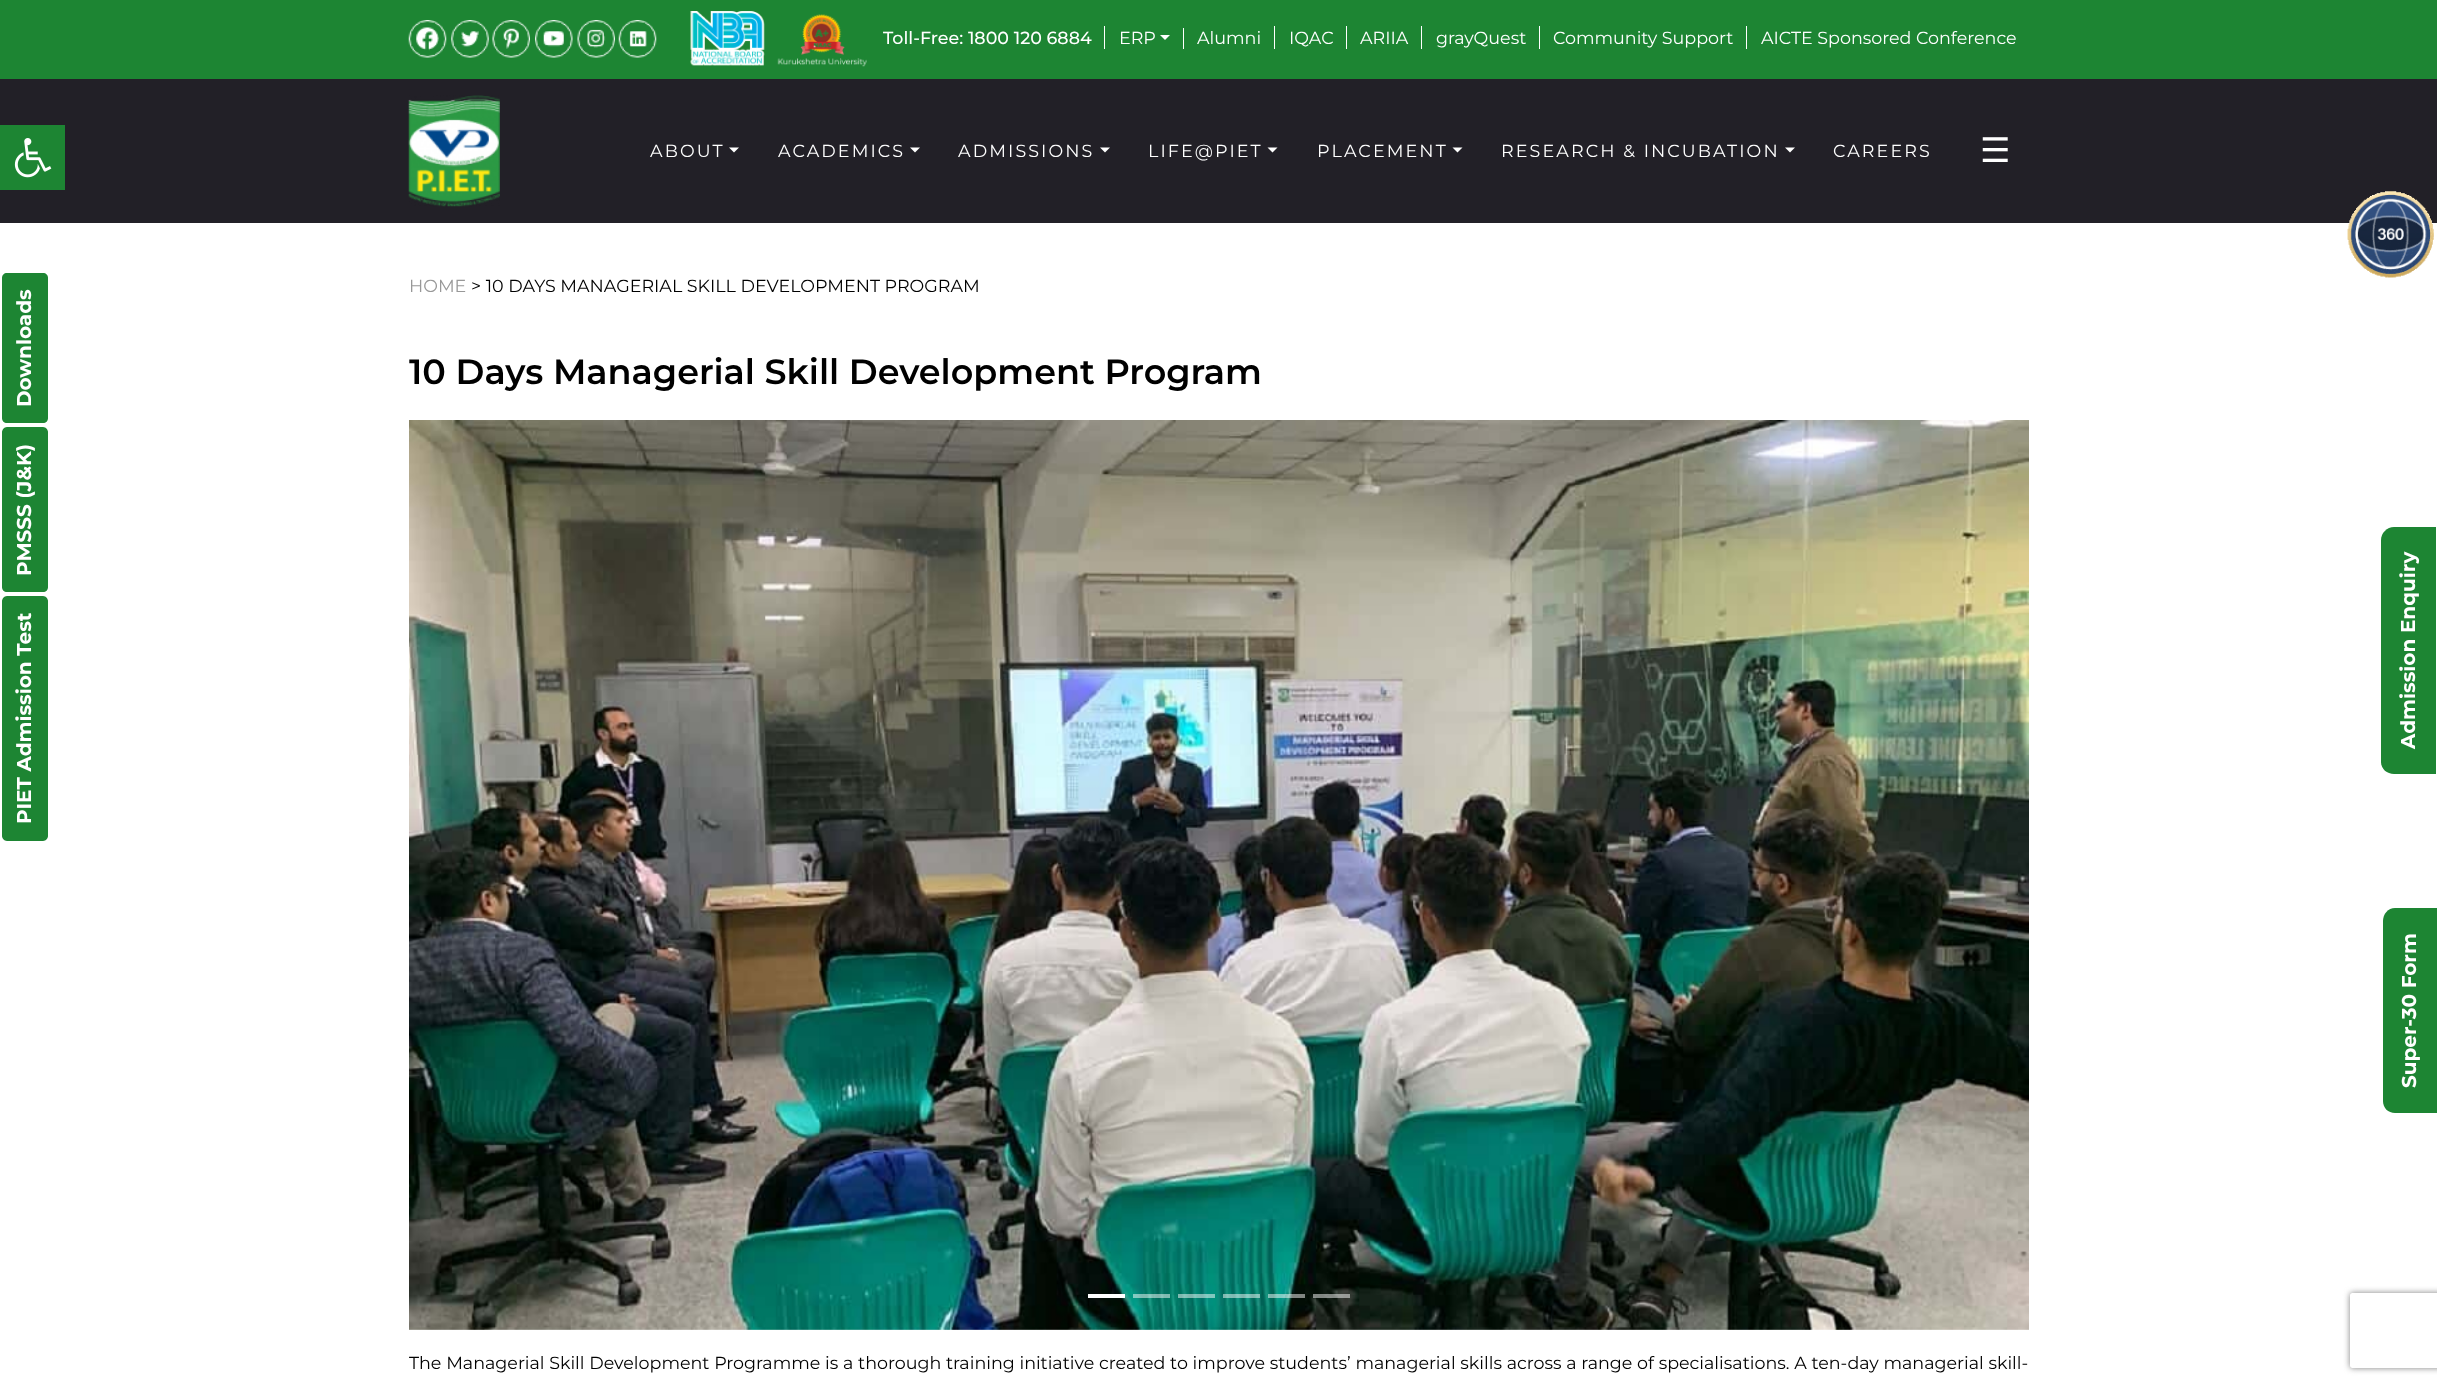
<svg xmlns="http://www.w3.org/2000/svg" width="2437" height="1384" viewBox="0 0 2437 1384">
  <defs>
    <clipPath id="clip1"><path d="M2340 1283H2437V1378H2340ZM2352.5 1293H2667.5C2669 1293 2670 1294 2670 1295.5V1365.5C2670 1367 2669 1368 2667.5 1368H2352.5C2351 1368 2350 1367 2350 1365.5V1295.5C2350 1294 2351 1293 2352.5 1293Z" clip-rule="evenodd"/></clipPath>
  </defs>
  <rect width="100%" height="100%" fill="rgb(255,255,255)"/>
  <rect x="0" y="79" width="2437" height="144" fill="rgb(34,32,39)"/>
  <rect x="0" y="125" width="65" height="65" fill="rgb(29,133,51)"/>
  <image x="14" y="138" width="38" height="40" href="pic1.png"/>
  <rect x="0" y="0" width="2437" height="79" fill="rgb(29,133,51)"/>
  <image x="408" y="20" width="39" height="38" href="pic2.png"/>
  <image x="451" y="20" width="38" height="38" href="pic3.png"/>
  <image x="492" y="20" width="38" height="38" href="pic4.png"/>
  <image x="535" y="20" width="38" height="38" href="pic5.png"/>
  <image x="577" y="20" width="38" height="38" href="pic6.png"/>
  <image x="618" y="20" width="39" height="38" href="pic7.png"/>
  <image x="690" y="11" width="75" height="55" href="pic8.png"/>
  <image x="777" y="14" width="90" height="53" href="pic9.png"/>
  <text x="883" y="44" font-family="Montserrat" font-size="17.5" font-weight="500" fill="rgb(255,255,255)">Toll-Free: 1800 120 6884</text>
  <rect x="1104" y="26" width="1" height="23" fill="rgb(255,255,255)"/>
  <rect x="1183" y="28" width="1" height="21" fill="rgb(255,255,255)"/>
  <text x="1119" y="44" font-family="Montserrat" font-size="17.5" fill="rgb(255,255,255)">ERP</text>
  <path d="M1160 35H1170L1165 40Z" fill="rgb(255,255,255)"/>
  <text x="1197" y="44" font-family="Montserrat" font-size="17.5" fill="rgb(255,255,255)">Alumni</text>
  <rect x="1274" y="26" width="1" height="23" fill="rgb(255,255,255)"/>
  <text x="1289" y="44" font-family="Montserrat" font-size="17.5" fill="rgb(255,255,255)">IQAC</text>
  <rect x="1346" y="26" width="1" height="23" fill="rgb(255,255,255)"/>
  <text x="1360" y="44" font-family="Montserrat" font-size="17.5" fill="rgb(255,255,255)">ARIIA</text>
  <rect x="1421" y="26" width="1" height="23" fill="rgb(255,255,255)"/>
  <text x="1436" y="44" font-family="Montserrat" font-size="17.5" fill="rgb(255,255,255)">grayQuest</text>
  <rect x="1539" y="26" width="1" height="23" fill="rgb(255,255,255)"/>
  <text x="1553" y="44" font-family="Montserrat" font-size="17.5" fill="rgb(255,255,255)">Community Support</text>
  <rect x="1746" y="26" width="1" height="23" fill="rgb(255,255,255)"/>
  <text x="1761" y="44" font-family="Montserrat" font-size="17.5" fill="rgb(255,255,255)">AICTE Sponsored Conference</text>
  <image x="408" y="95" width="92" height="112" href="pic10.png"/>
  <text x="650" y="157" font-family="Montserrat" font-size="17.5" letter-spacing="2.1" fill="rgb(255,255,255)">ABOUT</text>
  <path d="M729 147.5H739L734 152.5Z" fill="rgb(255,255,255)"/>
  <text x="778" y="157" font-family="Montserrat" font-size="17.5" letter-spacing="2.1" fill="rgb(255,255,255)">ACADEMICS</text>
  <path d="M910 147.5H920L915 152.5Z" fill="rgb(255,255,255)"/>
  <text x="958" y="157" font-family="Montserrat" font-size="17.5" letter-spacing="2.1" fill="rgb(255,255,255)">ADMISSIONS</text>
  <path d="M1100 147.5H1110L1105 152.5Z" fill="rgb(255,255,255)"/>
  <text x="1148" y="157" font-family="Montserrat" font-size="17.5" letter-spacing="2.1" fill="rgb(255,255,255)">LIFE@PIET</text>
  <path d="M1267.5 147.5H1277.5L1272.5 152.5Z" fill="rgb(255,255,255)"/>
  <text x="1317" y="157" font-family="Montserrat" font-size="17.5" letter-spacing="2.1" fill="rgb(255,255,255)">PLACEMENT</text>
  <path d="M1452.5 147.5H1462.5L1457.5 152.5Z" fill="rgb(255,255,255)"/>
  <text x="1501" y="157" font-family="Montserrat" font-size="17.5" letter-spacing="2.1" fill="rgb(255,255,255)">RESEARCH &amp; INCUBATION</text>
  <path d="M1785 147.5H1795L1790 152.5Z" fill="rgb(255,255,255)"/>
  <text x="1833" y="157" font-family="Montserrat" font-size="17.5" letter-spacing="2.1" fill="rgb(255,255,255)">CAREERS</text>
  <text x="1980" y="162" font-family="DejaVu Sans" font-size="34" fill="rgb(255,255,255)">☰</text>
  <image x="2347" y="191" width="87" height="87" href="pic11.png"/>
  <text x="409" y="292" font-family="Montserrat" font-size="17.5" fill="rgb(152,152,152)">HOME</text>
  <text x="471" y="292" font-family="Montserrat" font-size="17.5" fill="rgb(0,0,0)">&gt; 10 DAYS MANAGERIAL SKILL DEVELOPMENT PROGRAM</text>
  <path d="M2 418V278C2 275 4 273 7 273H43C46 273 48 275 48 278V418C48 421 46 423 43 423H7C4 423 2 421 2 418Z" fill="rgb(29,133,51)"/>
  <text x="31" y="407" transform="rotate(-90 31 407)" font-family="Montserrat" font-size="20" font-weight="bold" fill="rgb(255,255,255)">Downloads</text>
  <text x="409" y="384" font-family="Montserrat" font-size="35" font-weight="600" fill="rgb(0,0,0)">10 Days Managerial Skill Development Program</text>
  <image x="409" y="420" width="1620" height="910" href="pic12.png"/>
  <rect x="1088" y="1294" width="37" height="4" fill="rgb(255,255,255)"/>
  <rect x="1133" y="1294" width="37" height="4" fill="rgba(255,255,255,0.5)"/>
  <rect x="1178" y="1294" width="37" height="4" fill="rgba(255,255,255,0.5)"/>
  <rect x="1223" y="1294" width="37" height="4" fill="rgba(255,255,255,0.5)"/>
  <rect x="1268" y="1294" width="37" height="4" fill="rgba(255,255,255,0.5)"/>
  <rect x="1313" y="1294" width="37" height="4" fill="rgba(255,255,255,0.5)"/>
  <text x="409" y="1369" word-spacing="0.1" font-family="Montserrat" font-size="17.5" fill="rgb(0,0,0)">The Managerial Skill Development Programme is a thorough training initiative created to improve students’ managerial skills across a range of specialisations. A ten-day managerial skill-</text>
  <path d="M2 587V432C2 430 4 427 7 427H43C46 427 48 430 48 432V587C48 590 46 592 43 592H7C4 592 2 590 2 587Z" fill="rgb(29,133,51)"/>
  <text x="31" y="576" transform="rotate(-90 31 576)" font-family="Montserrat" font-size="20" font-weight="bold" fill="rgb(255,255,255)">PMSSS (J&amp;K)</text>
  <path d="M2 836V601C2 599 4 596 7 596H43C46 596 48 599 48 601V836C48 838 46 841 43 841H7C4 841 2 838 2 836Z" fill="rgb(29,133,51)"/>
  <text x="31" y="824" transform="rotate(-90 31 824)" font-family="Montserrat" font-size="20" font-weight="bold" fill="rgb(255,255,255)">PIET Admission Test</text>
  <path d="M2381 762V540C2381 533 2387 527 2394 527H2436V774H2394C2387 774 2381 769 2381 762Z" fill="rgb(29,133,51)"/>
  <text x="2415" y="749" transform="rotate(-90 2415 749)" font-family="Montserrat" font-size="20" font-weight="bold" fill="rgb(255,255,255)">Admission Enquiry</text>
  <path d="M2383 1101V921C2383 914 2388 908 2395 908H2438V1113H2395C2388 1113 2383 1108 2383 1101Z" fill="rgb(29,133,51)"/>
  <text x="2416" y="1088" transform="rotate(-90 2416 1088)" font-family="Montserrat" font-size="20" font-weight="bold" fill="rgb(255,255,255)">Super-30 Form</text>
  <g clip-path="url(#clip1)">
    <rect x="2350" y="1293" width="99" height="75" rx="2.5" fill="rgb(128,128,128)" filter="blur(3px)"/>
  </g>
</svg>
